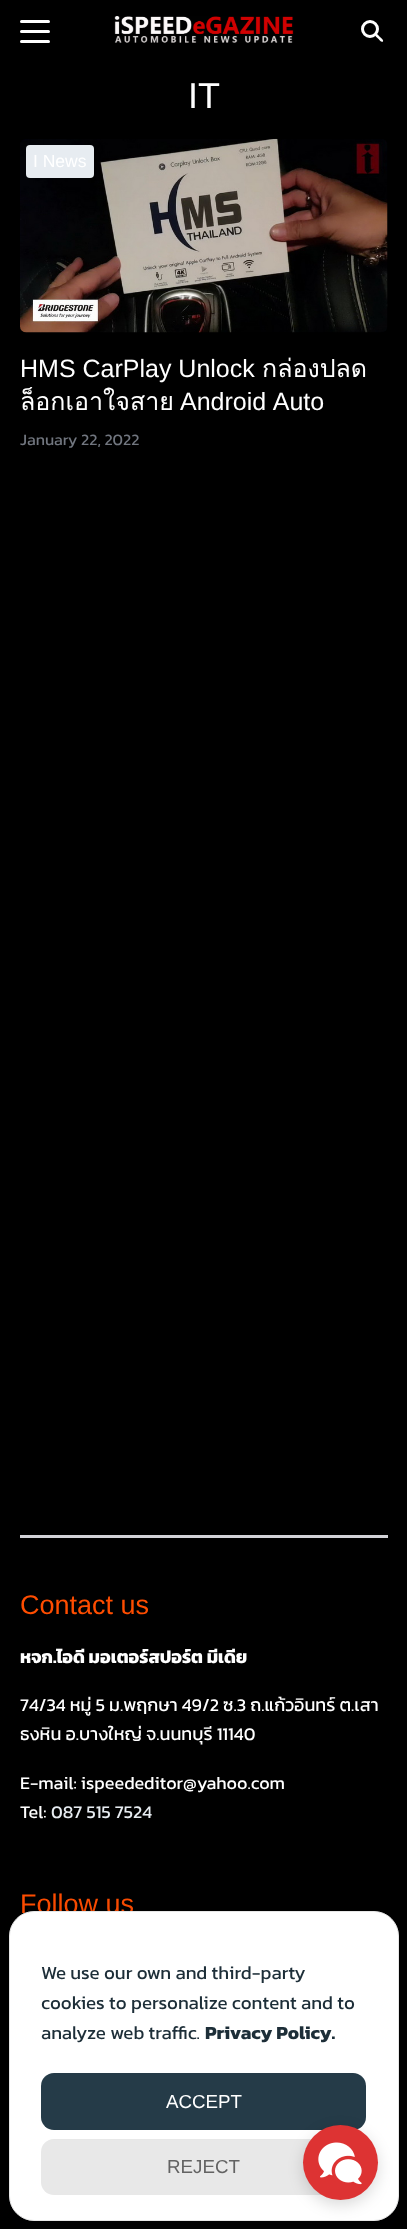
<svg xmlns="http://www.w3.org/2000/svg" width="407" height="2229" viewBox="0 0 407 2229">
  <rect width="100%" height="100%" fill="rgb(0,0,0)"/>
  <rect x="20" y="30" width="30" height="3" rx="1.5" fill="rgb(255,255,255)"/>
  <rect x="20" y="20" width="30" height="3" rx="1.5" fill="rgb(255,255,255)"/>
  <rect x="20" y="40" width="30" height="3" rx="1.5" fill="rgb(255,255,255)"/>
  <image x="114" y="16" width="180" height="27" href="pic1.png"/>
  <path d="M375.5 34C377 32.5 379 36 380 37C380.5 37.5 384 40 383 41.5C381.5 43 379 39.5 378 38.5C377.5 38 374 35.5 375.5 34Z" fill="rgb(255,255,255)"/>
  <circle cx="370" cy="29" r="7.5" fill="none" stroke="rgb(255,255,255)" stroke-width="3"/>
  <text x="188" y="108" font-family="Liberation Sans" font-size="36" fill="rgb(255,255,255)">IT</text>
  <image x="20" y="138" width="368" height="195" href="pic2.png"/>
  <rect x="26" y="145" width="68" height="33" rx="4" fill="rgb(231,236,241)"/>
  <text x="33" y="167" font-family="Liberation Sans" font-size="17.5" fill="rgb(255,255,255)">I News</text>
  <text x="20" y="377" font-family="Liberation Sans" font-size="25" fill="rgb(255,255,255)">HMS CarPlay Unlock</text>
  <g font-family="Loma" font-size="25" fill="rgb(255,255,255)">
    <text x="262" y="377">กล่องปลด</text>
    <text x="20" y="410">ล็อกเอาใจสาย</text>
  </g>
  <text x="180" y="410" word-spacing="1" font-family="Liberation Sans" font-size="25" fill="rgb(255,255,255)">Android Auto</text>
  <text x="20" y="445" font-family="Kanit" font-size="16" fill="rgb(113,118,127)">January 22, 2022</text>
  <rect x="20" y="1535" width="368" height="3" fill="rgb(210,210,215)"/>
  <text x="20" y="1614" font-family="Liberation Sans" font-size="27" fill="rgb(255,77,0)">Contact us</text>
  <text x="20" y="1663" font-family="Kanit" font-size="18" font-weight="bold" fill="rgb(255,255,255)">หจก.ไอดี มอเตอร์สปอร์ต มีเดีย</text>
  <g font-family="Kanit" font-size="18" fill="rgb(255,255,255)">
    <text>
      <tspan x="20" y="1711">74/34 หมู่ 5 ม.พฤกษา 49/2 ซ.3 ถ.แก้วอินทร์ ต.เสา</tspan>
      <tspan x="20" y="1740">ธงหิน อ.บางใหญ่ จ.นนทบุรี 11140</tspan>
    </text>
    <text>
      <tspan x="20" y="1789">E-mail: ispeededitor@yahoo.com</tspan>
      <tspan x="20" y="1818">Tel:</tspan>
    </text>
  </g>
  <text x="51" y="1818" font-family="Kanit" font-size="18" fill="rgb(231,236,241)">087 515 7524</text>
  <text x="20" y="1913" font-family="Liberation Sans" font-size="27" fill="rgb(255,77,0)">Follow us</text>
  <rect x="9" y="1924" width="390" height="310" rx="25" fill="rgba(2,2,3,0.2)" filter="blur(19px)"/>
  <rect x="9.5" y="1911.5" width="389" height="309" rx="24.5" fill="rgb(255,255,255)" stroke="rgb(230,230,230)"/>
  <rect x="41" y="2073" width="325" height="57" rx="13" fill="rgb(37,59,72)"/>
  <rect x="41" y="2139" width="325" height="56" rx="13" fill="rgb(232,232,232)"/>
  <rect x="303" y="2130" width="75" height="75" rx="37.5" fill="rgba(0,0,0,0.15)" filter="blur(7.5px)"/>
  <circle cx="340.5" cy="2162.5" r="37.5" fill="rgb(221,51,51)"/>
  <image x="318" y="2142" width="44" height="43" href="pic3.png"/>
  <g font-family="Kanit" font-size="18.75" fill="rgb(29,46,56)">
    <text>
      <tspan x="41" y="1979">We use our own and third-party</tspan>
      <tspan x="41" y="2009">cookies to personalize content and to</tspan>
      <tspan x="41" y="2039">analyze web traffic.</tspan>
    </text>
  </g>
  <text x="205" y="2039" font-family="Kanit" font-size="18.75" font-weight="bold" fill="rgb(29,46,56)">Privacy Policy.</text>
  <text x="166" y="2108" font-family="Liberation Sans" font-size="18.75" fill="rgb(255,255,255)">ACCEPT</text>
  <text x="167" y="2173" font-family="Liberation Sans" font-size="18.75" fill="rgb(99,99,99)">REJECT</text>
</svg>
